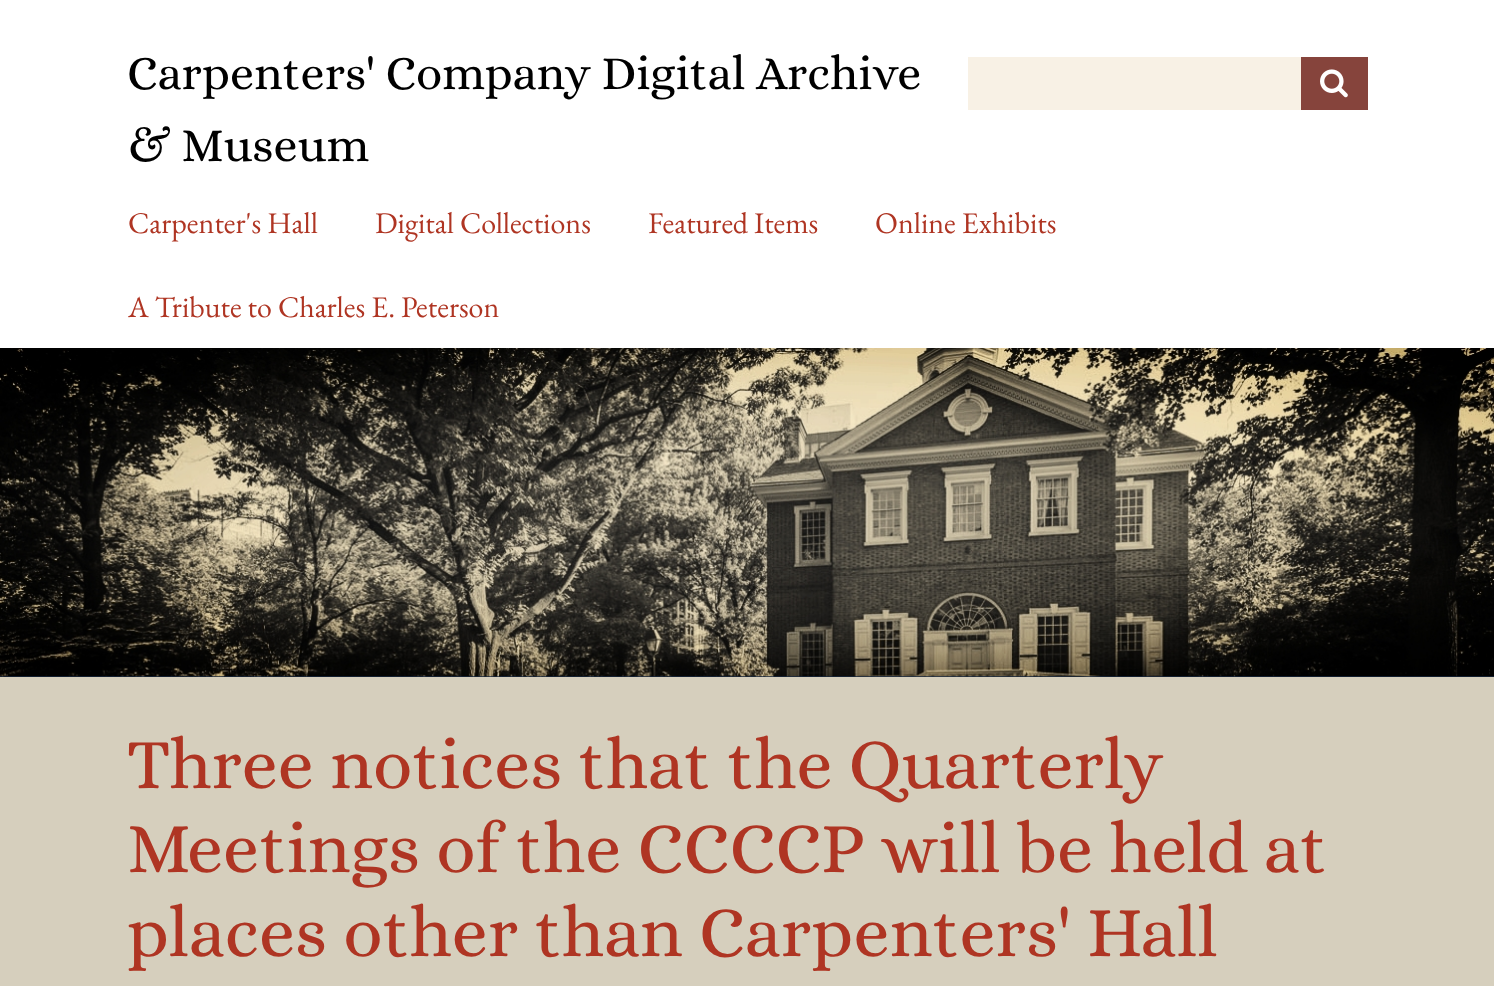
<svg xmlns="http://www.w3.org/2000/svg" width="1494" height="986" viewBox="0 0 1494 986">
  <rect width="100%" height="100%" fill="rgb(24,40,63)"/>
  <rect x="0" y="0" width="1494" height="348" fill="rgb(255,255,255)"/>
  <g font-family="Alice" font-size="48" fill="rgb(0,0,0)">
    <text>
      <tspan x="127" y="89">Carpenters' Company Digital Archive</tspan>
      <tspan x="127" y="161">&amp; Museum</tspan>
    </text>
  </g>
  <rect x="968" y="57" width="333" height="53" fill="rgb(248,241,229)"/>
  <rect x="1301" y="57" width="67" height="53" fill="rgb(134,68,60)"/>
  <image x="1320" y="69" width="28" height="29" href="pic1.png"/>
  <g font-family="EB Garamond" font-size="30" fill="rgb(175,53,35)">
    <text x="128" y="233">Carpenter's Hall</text>
    <text x="375" y="233">Digital Collections</text>
    <text x="648" y="233">Featured Items</text>
    <text x="875" y="233">Online Exhibits</text>
    <text x="128" y="317">A Tribute to Charles E. Peterson</text>
  </g>
  <image x="0" y="348" width="1494" height="329" href="pic2.png"/>
  <rect x="0" y="677" width="1494" height="309" fill="rgb(214,207,189)"/>
  <g font-family="Alice" font-size="72" fill="rgb(175,53,35)">
    <text>
      <tspan x="127" y="788">Three notices that the Quarterly</tspan>
      <tspan x="127" y="872">Meetings of the CCCCP will be held at</tspan>
      <tspan x="127" y="956">places other than Carpenters' Hall</tspan>
    </text>
  </g>
</svg>
